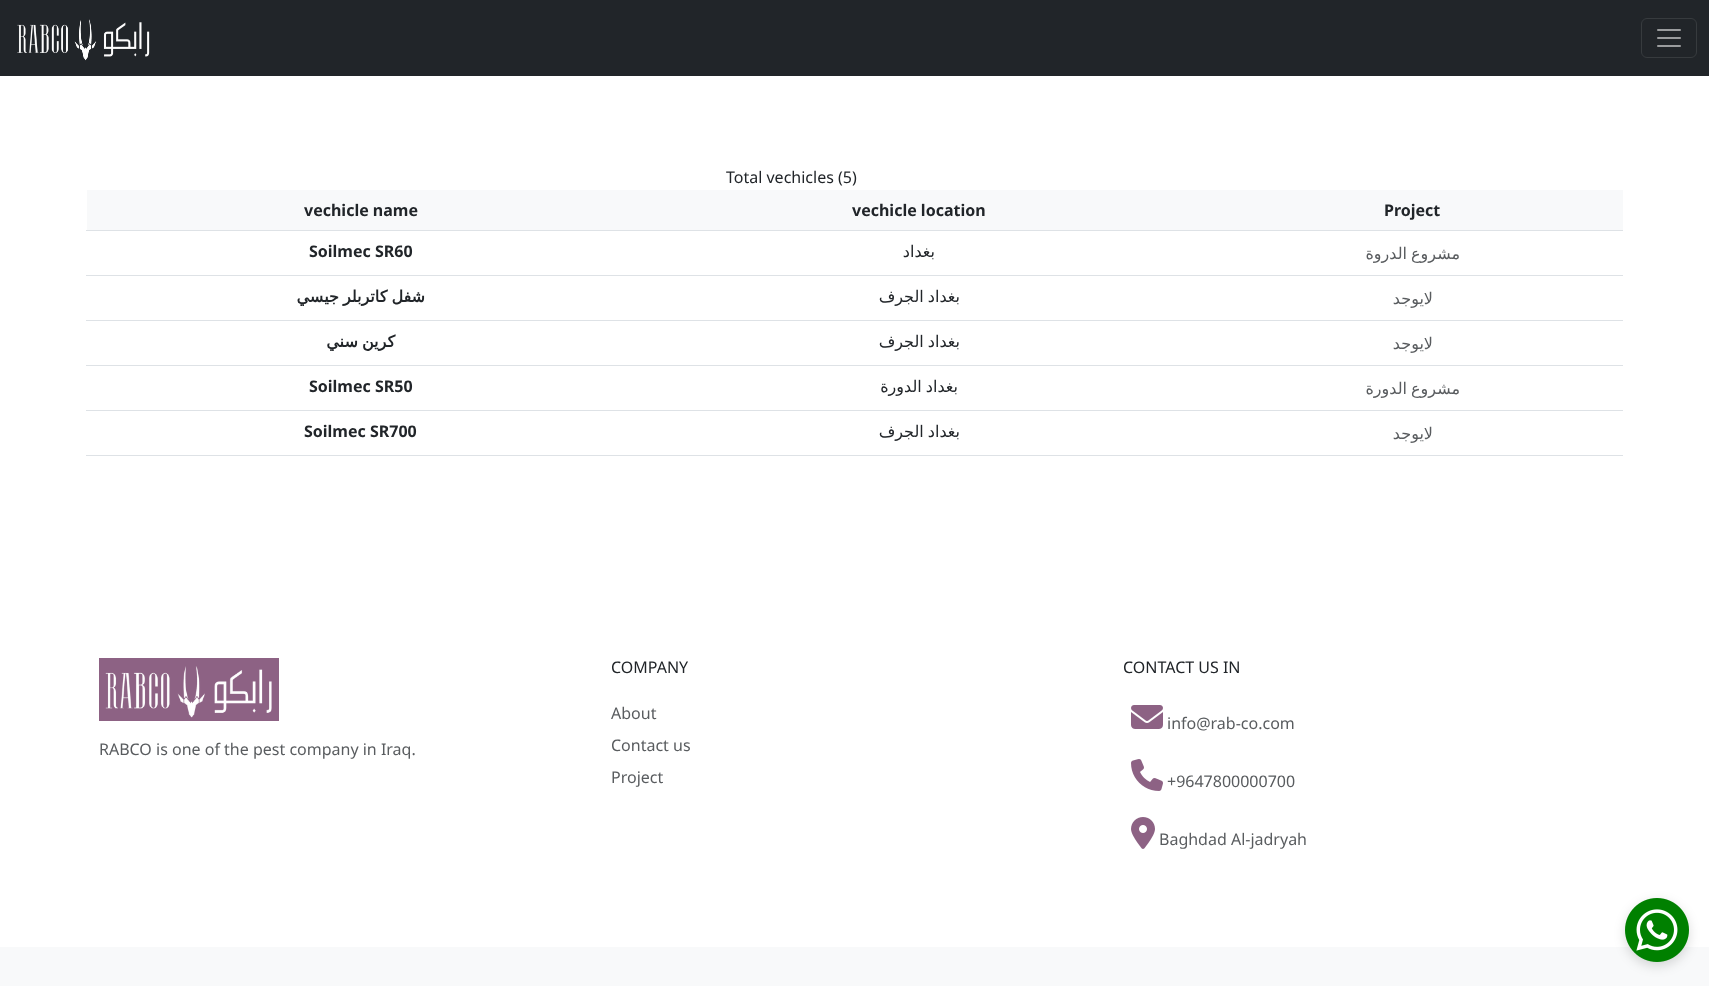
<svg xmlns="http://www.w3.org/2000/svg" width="1709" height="986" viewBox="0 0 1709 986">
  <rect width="100%" height="100%" fill="rgb(255,255,255)"/>
  <rect x="0" y="0" width="1709" height="76" fill="rgb(33,37,41)"/>
  <image x="17" y="19" width="133" height="42" href="pic1.png"/>
  <rect x="1641.5" y="18.5" width="55" height="39" rx="5.5" fill="none" stroke="rgb(55,59,62)"/>
  <image x="1657" y="29" width="24" height="18" href="pic2.png"/>
  <text x="726" y="183" font-family="Noto Sans" font-size="16" fill="rgb(33,37,41)">Total vechicles (5)</text>
  <rect x="87" y="190" width="1536" height="40" fill="rgb(248,249,250)"/>
  <g font-family="Noto Sans" font-size="16" font-weight="bold" fill="rgb(33,37,41)">
    <text x="304" y="216">vechicle name</text>
    <text x="852" y="216">vechicle location</text>
  </g>
  <rect x="86" y="230" width="1537" height="1" fill="rgb(222,226,230)"/>
  <g font-family="Noto Sans" font-size="16" font-weight="bold" fill="rgb(33,37,41)">
    <text x="1384" y="216">Project</text>
    <text x="309" y="257">Soilmec SR60</text>
  </g>
  <text x="935" y="257" font-family="DejaVu Sans" font-size="16" direction="rtl" fill="rgb(33,37,41)">بغداد</text>
  <rect x="86" y="275" width="1537" height="1" fill="rgb(222,226,230)"/>
  <text x="1460" y="259" word-spacing="-1" font-family="DejaVu Sans" font-size="16" direction="rtl" fill="rgb(89,92,95)">مشروع الدروة</text>
  <text x="425" y="302" word-spacing="-1" font-family="DejaVu Sans" font-size="16" font-weight="bold" direction="rtl" fill="rgb(33,37,41)">شفل كاتربلر جيسي</text>
  <text x="960" y="302" word-spacing="-1" font-family="DejaVu Sans" font-size="16" direction="rtl" fill="rgb(33,37,41)">بغداد الجرف</text>
  <rect x="86" y="320" width="1537" height="1" fill="rgb(222,226,230)"/>
  <text x="1433" y="304" font-family="DejaVu Sans" font-size="16" direction="rtl" fill="rgb(89,92,95)">لايوجد</text>
  <text x="395" y="347" word-spacing="-1" font-family="DejaVu Sans" font-size="16" font-weight="bold" direction="rtl" fill="rgb(33,37,41)">كرين سني</text>
  <text x="960" y="347" word-spacing="-1" font-family="DejaVu Sans" font-size="16" direction="rtl" fill="rgb(33,37,41)">بغداد الجرف</text>
  <rect x="86" y="365" width="1537" height="1" fill="rgb(222,226,230)"/>
  <text x="1433" y="349" font-family="DejaVu Sans" font-size="16" direction="rtl" fill="rgb(89,92,95)">لايوجد</text>
  <text x="309" y="392" font-family="Noto Sans" font-size="16" font-weight="bold" fill="rgb(33,37,41)">Soilmec SR50</text>
  <text x="958" y="392" word-spacing="-1" font-family="DejaVu Sans" font-size="16" direction="rtl" fill="rgb(33,37,41)">بغداد الدورة</text>
  <rect x="86" y="410" width="1537" height="1" fill="rgb(222,226,230)"/>
  <text x="1460" y="394" word-spacing="-1" font-family="DejaVu Sans" font-size="16" direction="rtl" fill="rgb(89,92,95)">مشروع الدورة</text>
  <text x="304" y="437" font-family="Noto Sans" font-size="16" font-weight="bold" fill="rgb(33,37,41)">Soilmec SR700</text>
  <text x="960" y="437" word-spacing="-1" font-family="DejaVu Sans" font-size="16" direction="rtl" fill="rgb(33,37,41)">بغداد الجرف</text>
  <rect x="86" y="455" width="1537" height="1" fill="rgb(222,226,230)"/>
  <text x="1433" y="439" font-family="DejaVu Sans" font-size="16" direction="rtl" fill="rgb(89,92,95)">لايوجد</text>
  <rect x="99" y="658" width="180" height="63" fill="rgb(141,98,132)"/>
  <image x="105" y="666" width="167" height="52" href="pic3.png"/>
  <text x="99" y="755" font-family="Noto Sans" font-size="16" fill="rgb(89,92,95)">RABCO is one of the pest company in Iraq.</text>
  <text x="611" y="673" font-family="Noto Sans" font-size="16" fill="rgb(33,37,41)">COMPANY</text>
  <g font-family="Noto Sans" font-size="16" fill="rgb(89,92,95)">
    <text x="611" y="719">About</text>
    <text x="611" y="751">Contact us</text>
    <text x="611" y="783">Project</text>
  </g>
  <text x="1123" y="673" font-family="Noto Sans" font-size="16" fill="rgb(33,37,41)">CONTACT US IN</text>
  <image x="1131" y="705" width="32" height="24" href="pic4.png"/>
  <text x="1167" y="729" font-family="Noto Sans" font-size="16" fill="rgb(89,92,95)">info@rab-co.com</text>
  <image x="1131" y="759" width="32" height="32" href="pic5.png"/>
  <text x="1167" y="787" font-family="Noto Sans" font-size="16" fill="rgb(89,92,95)">+9647800000700</text>
  <image x="1131" y="817" width="24" height="32" href="pic6.png"/>
  <text x="1159" y="845" font-family="Noto Sans" font-size="16" fill="rgb(89,92,95)">Baghdad Al-jadryah</text>
  <rect x="0" y="947" width="1709" height="39" fill="rgb(248,249,250)"/>
  <rect x="1625" y="902" width="64" height="64" rx="32" fill="rgba(0,0,0,0.15)" filter="blur(6px)"/>
  <image x="1625" y="898" width="64" height="64" href="pic7.png"/>
</svg>
